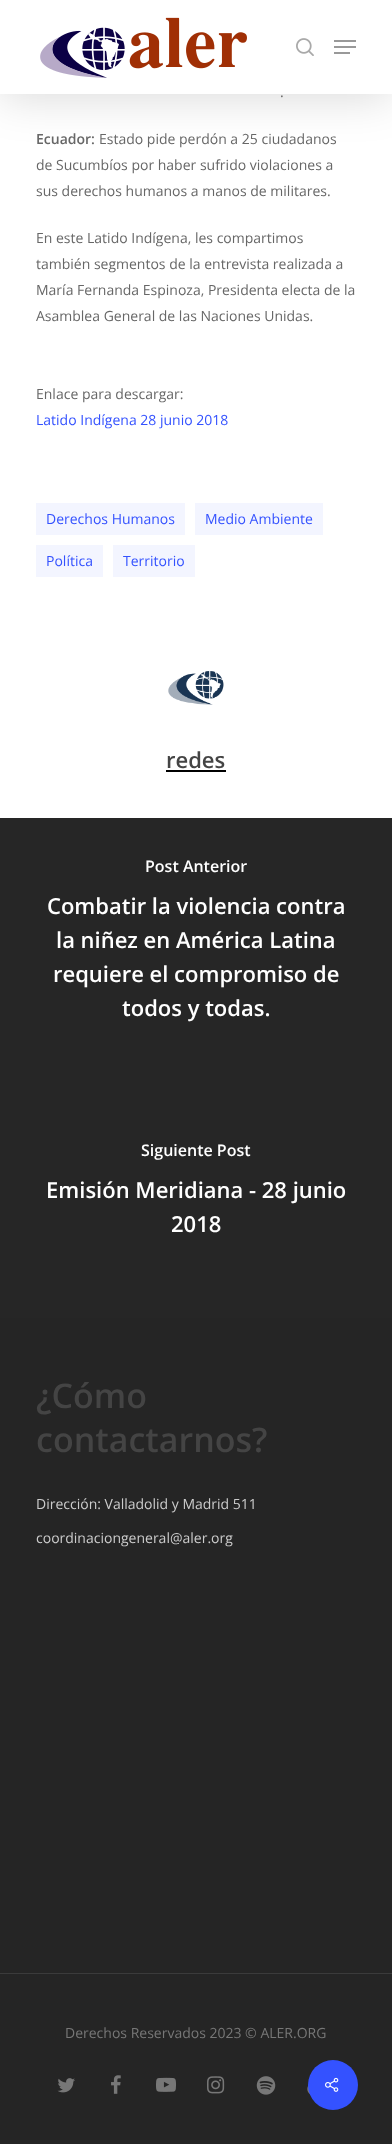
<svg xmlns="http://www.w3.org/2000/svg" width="392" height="2144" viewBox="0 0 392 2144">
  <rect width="100%" height="100%" fill="rgb(255,255,255)"/>
  <rect x="0" y="3" width="392" height="94" fill="rgba(0,0,0,0.15)" filter="blur(22.5px)"/>
  <rect x="0" y="0" width="392" height="94" fill="rgb(255,255,255)"/>
  <image x="40" y="17" width="207" height="61" href="pic1.png"/>
  <image x="296" y="38" width="18" height="18" href="pic2.png"/>
  <rect x="334" y="40" width="22" height="2" fill="rgb(153,153,153)"/>
  <rect x="334" y="52" width="16" height="2" fill="rgb(153,153,153)"/>
  <rect x="334" y="46" width="22" height="2" fill="rgb(153,153,153)"/>
  <text x="280" y="97" font-family="Open Sans" font-size="14" fill="rgb(103,103,103)">.</text>
  <text x="36" y="144" font-family="Open Sans" font-size="14" font-weight="600" fill="rgb(103,103,103)">Ecuador:</text>
  <g font-family="Open Sans" font-size="14" fill="rgb(103,103,103)">
    <text x="99" y="144">Estado pide perdón a 25 ciudadanos</text>
    <text>
      <tspan x="36" y="170">de Sucumbíos por haber sufrido violaciones a</tspan>
      <tspan x="36" y="196">sus derechos humanos a manos de militares.</tspan>
    </text>
    <text>
      <tspan x="36" y="243">En este Latido Indígena, les compartimos</tspan>
      <tspan x="36" y="269">también segmentos de la entrevista realizada a</tspan>
      <tspan x="36" y="295">María Fernanda Espinoza, Presidenta electa de la</tspan>
      <tspan x="36" y="321">Asamblea General de las Naciones Unidas.</tspan>
    </text>
    <text x="36" y="399">Enlace para descargar:</text>
  </g>
  <text x="36" y="425" font-family="Open Sans" font-size="14" fill="rgb(52,82,255)">Latido Indígena 28 junio 2018</text>
  <rect x="36" y="503" width="149" height="32" fill="rgba(52,82,255,0.06)"/>
  <text x="46" y="524" font-family="Open Sans" font-size="14" fill="rgb(52,82,255)">Derechos Humanos</text>
  <rect x="195" y="503" width="128" height="32" fill="rgba(52,82,255,0.06)"/>
  <text x="205" y="524" font-family="Open Sans" font-size="14" fill="rgb(52,82,255)">Medio Ambiente</text>
  <rect x="36" y="545" width="67" height="32" fill="rgba(52,82,255,0.06)"/>
  <text x="46" y="566" font-family="Open Sans" font-size="14" fill="rgb(52,82,255)">Política</text>
  <rect x="113" y="545" width="82" height="32" fill="rgba(52,82,255,0.06)"/>
  <text x="123" y="566" font-family="Open Sans" font-size="14" fill="rgb(52,82,255)">Territorio</text>
  <image x="168" y="671" width="56" height="34" href="pic3.png"/>
  <text x="166" y="768" font-family="Open Sans" font-size="22" font-weight="600" fill="rgb(68,68,68)">redes</text>
  <rect x="166" y="770" width="60" height="2" fill="rgb(0,0,0)"/>
  <rect x="0" y="818" width="392" height="500" fill="rgb(38,38,38)"/>
  <text x="145" y="872" font-family="Open Sans" font-size="16" font-weight="600" fill="rgb(255,255,255)">Post Anterior</text>
  <g font-family="Open Sans" font-size="22" font-weight="600" fill="rgb(255,255,255)">
    <text x="47" y="914">Combatir la violencia contra</text>
    <text x="56" y="948">la niñez en América Latina</text>
    <text x="53" y="982">requiere el compromiso de</text>
    <text x="122" y="1016">todos y todas.</text>
  </g>
  <text x="141" y="1156" font-family="Open Sans" font-size="16" font-weight="600" fill="rgb(255,255,255)">Siguiente Post</text>
  <g font-family="Open Sans" font-size="22" font-weight="600" fill="rgb(255,255,255)">
    <text x="46" y="1198">Emisión Meridiana - 28 junio</text>
    <text x="171" y="1232">2018</text>
  </g>
  <rect x="0" y="1318" width="392" height="826" fill="rgb(37,37,37)"/>
  <g font-family="Open Sans" font-size="34" font-weight="600" fill="rgb(68,68,68)">
    <text>
      <tspan x="36" y="1408">¿Cómo</tspan>
      <tspan x="36" y="1452">contactarnos?</tspan>
    </text>
  </g>
  <g font-family="Open Sans" font-size="14" fill="rgb(204,204,204)">
    <text x="36" y="1509">Dirección: Valladolid y Madrid 511</text>
    <text x="36" y="1543">coordinaciongeneral@aler.org</text>
  </g>
  <rect x="0" y="1973" width="392" height="1" fill="rgb(59,59,59)"/>
  <text x="65" y="2038" font-family="Open Sans" font-size="14" fill="rgb(119,119,119)">Derechos Reservados 2023 © ALER.ORG</text>
  <image x="57" y="2078" width="18" height="15" href="pic4.png"/>
  <image x="111" y="2075" width="10" height="19" href="pic5.png"/>
  <image x="156" y="2077" width="20" height="15" href="pic6.png"/>
  <image x="207" y="2076" width="18" height="18" href="pic7.png"/>
  <image x="256" y="2076" width="20" height="19" href="pic8.png"/>
  <image x="307" y="2084" width="4" height="11" href="pic9.png"/>
  <circle cx="333" cy="2085" r="25" fill="rgb(52,82,255)"/>
  <image x="325" y="2077" width="14" height="15" href="pic10.png"/>
</svg>
